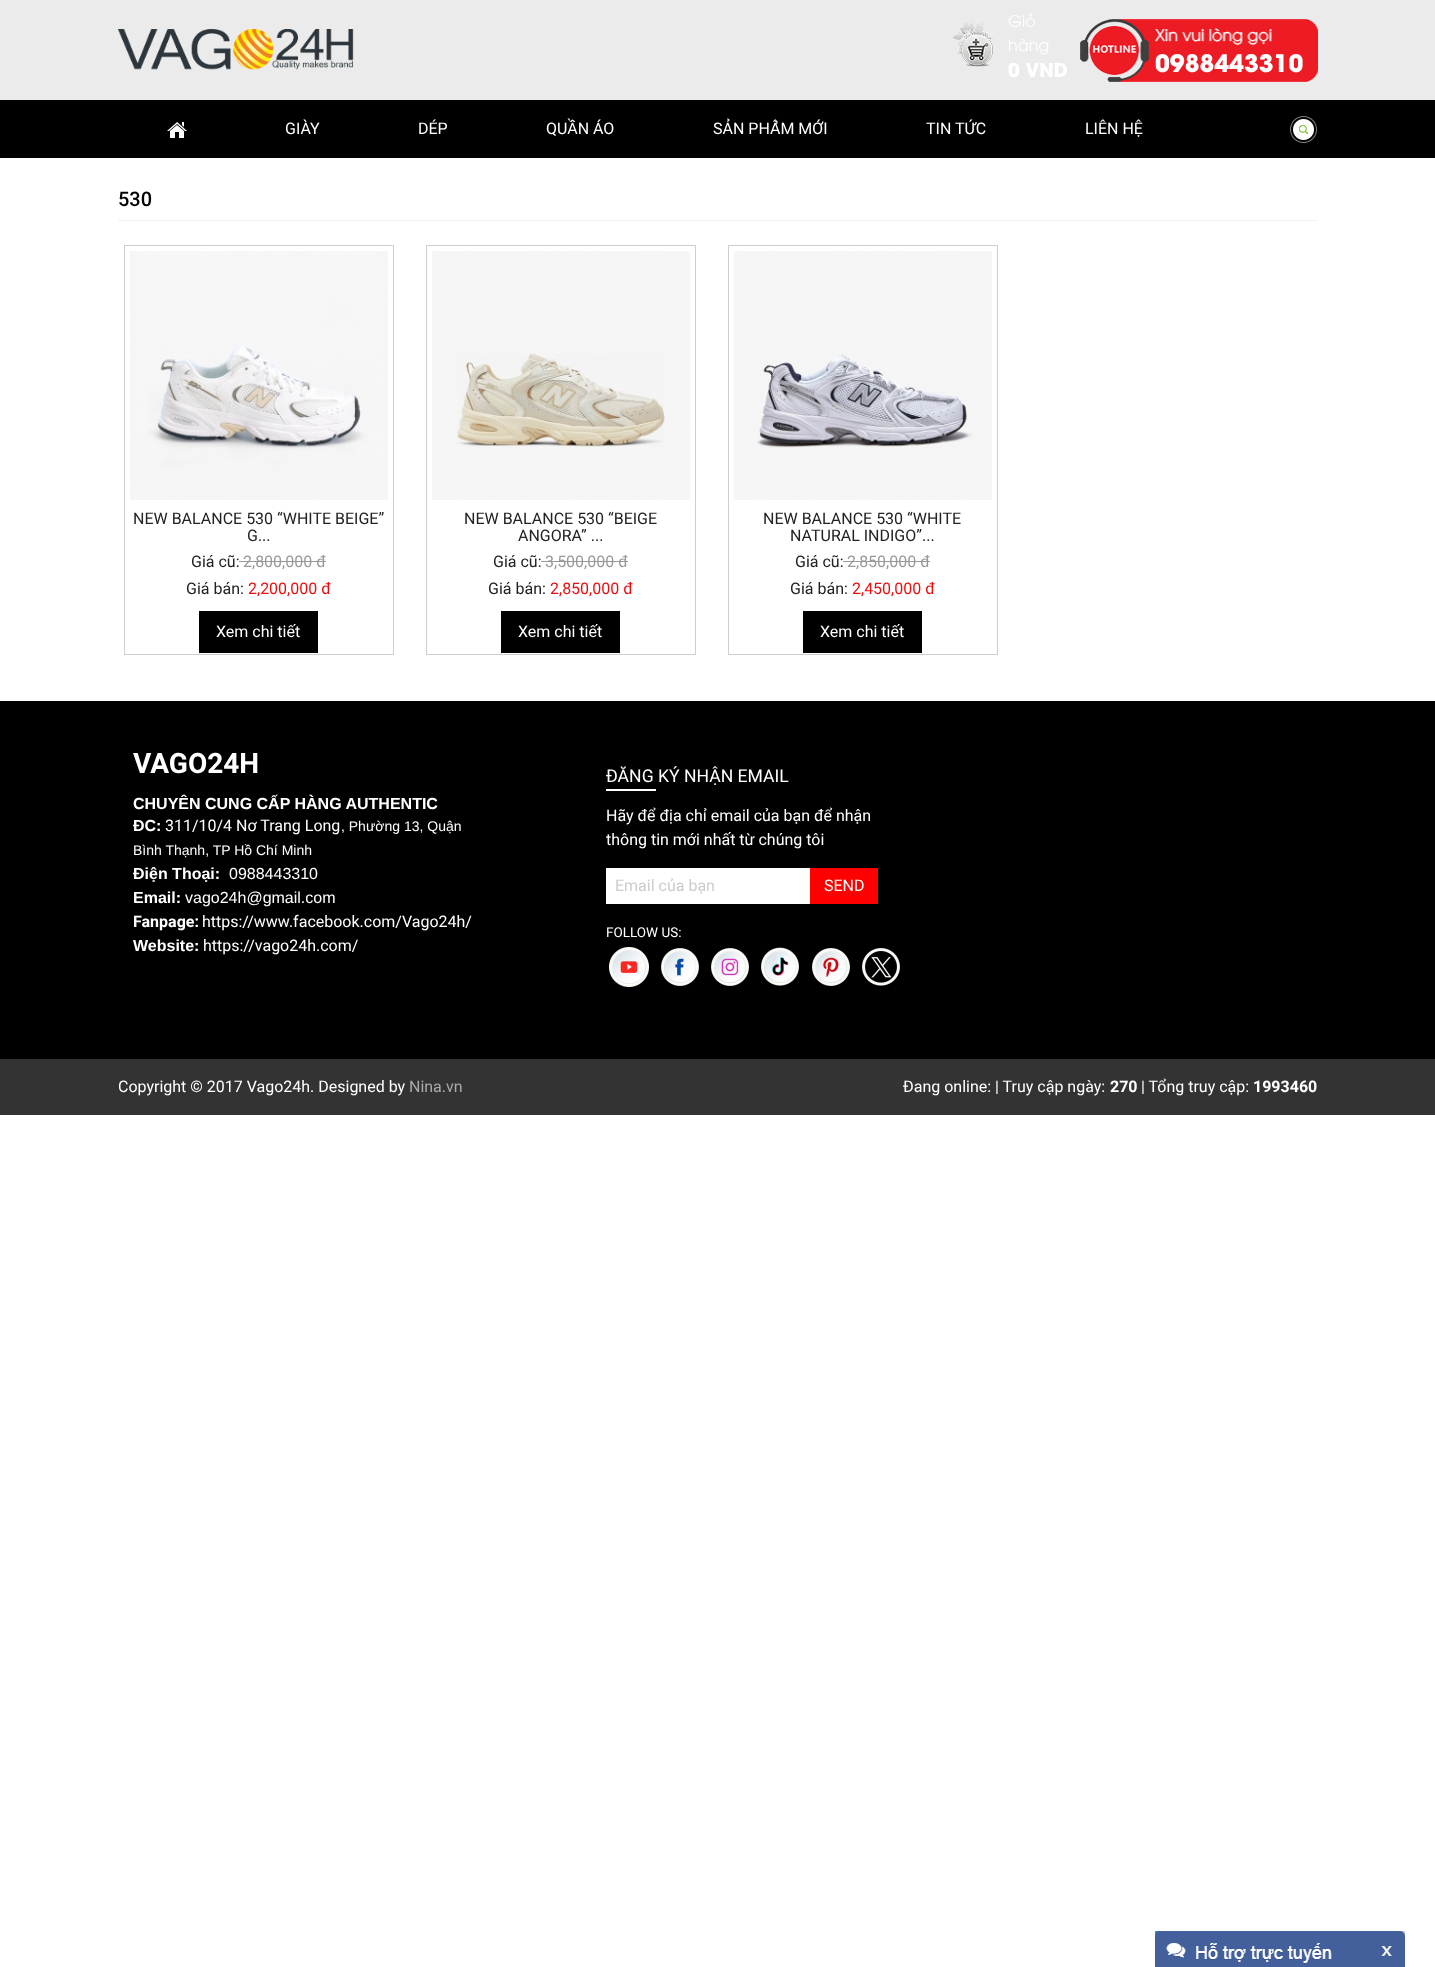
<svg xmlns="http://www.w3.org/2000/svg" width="1435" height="1967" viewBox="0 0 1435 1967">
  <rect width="100%" height="100%" fill="rgb(255,255,255)"/>
  <rect x="0" y="0" width="1435" height="100" fill="rgb(235,235,235)"/>
  <image x="118" y="29" width="236" height="41" href="pic1.png"/>
  <image x="953" y="17" width="41" height="50" href="pic2.png"/>
  <g font-family="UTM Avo" font-size="16" fill="rgb(255,255,255)">
    <text>
      <tspan x="1008" y="27">Giỏ</tspan>
      <tspan x="1008" y="51">hàng</tspan>
    </text>
  </g>
  <text x="1008" y="77" font-family="UTM Avo" font-size="19" font-weight="bold" fill="rgb(255,255,255)">0 VND</text>
  <image x="1080" y="19" width="238" height="63" href="pic3.png"/>
  <text x="1155" y="72" font-family="UTM Avo" font-size="24" font-weight="bold" fill="rgb(255,255,255)">0988443310</text>
  <rect x="0" y="100" width="1435" height="58" fill="rgb(0,0,0)"/>
  <image x="167" y="122" width="20" height="16" href="pic4.png"/>
  <g font-family="Roboto" font-size="16" fill="rgb(255,255,255)">
    <text x="285" y="134">GIÀY</text>
    <text x="418" y="134">DÉP</text>
    <text x="546" y="134">QUẦN ÁO</text>
    <text x="713" y="134">SẢN PHẨM MỚI</text>
    <text x="926" y="134">TIN TỨC</text>
    <text x="1085" y="134">LIÊN HỆ</text>
  </g>
  <image x="1290" y="116" width="27" height="27" href="pic5.png"/>
  <rect x="118" y="220" width="1200" height="1" fill="rgb(242,242,242)"/>
  <text x="118" y="206" font-family="Roboto" font-size="20" font-weight="500" fill="rgb(0,0,0)">530</text>
  <rect x="124.5" y="245.5" width="269" height="409" fill="none" stroke="rgb(206,206,206)"/>
  <image x="130" y="251" width="258" height="249" href="pic6.png"/>
  <image x="148" y="345" width="221" height="115" href="pic7.png"/>
  <g font-family="Roboto" font-size="16" fill="rgb(34,34,34)">
    <text x="133" y="524">NEW BALANCE 530 “WHITE BEIGE”</text>
    <text x="247" y="541">G...</text>
    <text x="191" y="567">Giá cũ:</text>
  </g>
  <text x="243" y="567" font-family="Roboto" font-size="16" fill="rgb(153,153,153)">2,800,000 đ</text>
  <rect x="239" y="561" width="87" height="1" fill="rgb(153,153,153)"/>
  <text x="186" y="594" font-family="Roboto" font-size="16" fill="rgb(34,34,34)">Giá bán:</text>
  <text x="248" y="594" font-family="Roboto" font-size="16" fill="rgb(233,13,13)">2,200,000 đ</text>
  <rect x="199" y="611" width="119" height="42" fill="rgb(0,0,0)"/>
  <text x="216" y="637" font-family="Roboto" font-size="16" fill="rgb(255,255,255)">Xem chi tiết</text>
  <rect x="426.5" y="245.5" width="269" height="409" fill="none" stroke="rgb(206,206,206)"/>
  <image x="432" y="251" width="258" height="249" href="pic8.png"/>
  <image x="457" y="353" width="215" height="99" href="pic9.png"/>
  <g font-family="Roboto" font-size="16" fill="rgb(34,34,34)">
    <text x="464" y="524">NEW BALANCE 530 “BEIGE</text>
    <text x="518" y="541">ANGORA” ...</text>
    <text x="493" y="567">Giá cũ:</text>
  </g>
  <text x="545" y="567" font-family="Roboto" font-size="16" fill="rgb(153,153,153)">3,500,000 đ</text>
  <rect x="541" y="561" width="87" height="1" fill="rgb(153,153,153)"/>
  <text x="488" y="594" font-family="Roboto" font-size="16" fill="rgb(34,34,34)">Giá bán:</text>
  <text x="550" y="594" font-family="Roboto" font-size="16" fill="rgb(233,13,13)">2,850,000 đ</text>
  <rect x="501" y="611" width="119" height="42" fill="rgb(0,0,0)"/>
  <text x="518" y="637" font-family="Roboto" font-size="16" fill="rgb(255,255,255)">Xem chi tiết</text>
  <rect x="728.5" y="245.5" width="269" height="409" fill="none" stroke="rgb(206,206,206)"/>
  <image x="734" y="251" width="258" height="249" href="pic10.png"/>
  <image x="755" y="354" width="219" height="98" href="pic11.png"/>
  <g font-family="Roboto" font-size="16" fill="rgb(34,34,34)">
    <text x="763" y="524">NEW BALANCE 530 “WHITE</text>
    <text x="790" y="541">NATURAL INDIGO”...</text>
    <text x="795" y="567">Giá cũ:</text>
  </g>
  <text x="847" y="567" font-family="Roboto" font-size="16" fill="rgb(153,153,153)">2,850,000 đ</text>
  <rect x="843" y="561" width="87" height="1" fill="rgb(153,153,153)"/>
  <text x="790" y="594" font-family="Roboto" font-size="16" fill="rgb(34,34,34)">Giá bán:</text>
  <text x="852" y="594" font-family="Roboto" font-size="16" fill="rgb(233,13,13)">2,450,000 đ</text>
  <rect x="803" y="611" width="119" height="42" fill="rgb(0,0,0)"/>
  <text x="820" y="637" font-family="Roboto" font-size="16" fill="rgb(255,255,255)">Xem chi tiết</text>
  <rect x="0" y="701" width="1435" height="358" fill="rgb(0,0,0)"/>
  <text x="133" y="773" font-family="Roboto" font-size="28" font-weight="bold" fill="rgb(255,255,255)">VAGO24H</text>
  <g font-family="Liberation Sans" font-size="16" font-weight="bold" fill="rgb(255,255,255)">
    <text>
      <tspan x="133" y="809">CHUYÊN CUNG CẤP HÀNG AUTHENTIC</tspan>
      <tspan x="133" y="831">ĐC:</tspan>
    </text>
  </g>
  <text x="165" y="831" font-family="Roboto" font-size="16" fill="rgb(255,255,255)">311/10/4 Nơ Trang Long</text>
  <g font-family="Liberation Sans" font-size="14" fill="rgb(255,255,255)">
    <text x="341" y="831">, Phường 13, Quận</text>
    <text x="133" y="855">Bình Thạnh, TP Hồ Chí Minh</text>
  </g>
  <text x="133" y="879" font-family="Liberation Sans" font-size="16" font-weight="bold" fill="rgb(255,255,255)">Điện Thoại:</text>
  <text x="229" y="879" font-family="Liberation Sans" font-size="16" fill="rgb(255,255,255)">0988443310</text>
  <text x="133" y="903" font-family="Liberation Sans" font-size="16" font-weight="bold" fill="rgb(255,255,255)">Email:</text>
  <text x="185" y="903" font-family="Liberation Sans" font-size="16" fill="rgb(255,255,255)">vago24h@gmail.com</text>
  <text x="133" y="927" font-family="Roboto" font-size="16" font-weight="bold" fill="rgb(255,255,255)">Fanpage:</text>
  <text x="202" y="927" font-family="Roboto" font-size="16" fill="rgb(255,255,255)">https://www.facebook.com/Vago24h/</text>
  <text x="133" y="951" font-family="Liberation Sans" font-size="16" font-weight="bold" fill="rgb(255,255,255)">Website:</text>
  <text x="203" y="951" font-family="Roboto" font-size="16" fill="rgb(255,255,255)">https://vago24h.com/</text>
  <text x="606" y="782" font-family="Roboto" font-size="17.6" fill="rgb(255,255,255)">ĐĂNG KÝ NHẬN EMAIL</text>
  <rect x="606" y="789" width="50" height="2" fill="rgb(255,255,255)"/>
  <g font-family="Roboto" font-size="16" fill="rgb(255,255,255)">
    <text>
      <tspan x="606" y="821">Hãy để địa chỉ email của bạn để nhận</tspan>
      <tspan x="606" y="845">thông tin mới nhất từ chúng tôi</tspan>
    </text>
  </g>
  <rect x="606" y="868" width="204" height="36" fill="rgb(255,255,255)"/>
  <text x="615" y="891" font-family="Roboto" font-size="16" fill="rgb(204,204,204)">Email của bạn</text>
  <rect x="810" y="868" width="68" height="36" fill="rgb(255,0,0)"/>
  <text x="824" y="891" font-family="Roboto" font-size="16" fill="rgb(255,255,255)">SEND</text>
  <text x="606" y="937" font-family="Roboto" font-size="13.5" fill="rgb(255,255,255)">FOLLOW US:</text>
  <image x="609" y="947" width="40" height="40" href="pic12.png"/>
  <image x="661" y="948" width="38" height="38" href="pic13.png"/>
  <image x="711" y="948" width="38" height="38" href="pic14.png"/>
  <image x="761" y="947" width="38" height="39" href="pic15.png"/>
  <image x="812" y="948" width="38" height="38" href="pic16.png"/>
  <image x="862" y="948" width="38" height="38" href="pic17.png"/>
  <rect x="0" y="1059" width="1435" height="56" fill="rgb(51,51,51)"/>
  <text x="118" y="1092" font-family="Roboto" font-size="16" fill="rgb(255,255,255)">Copyright © 2017 Vago24h. Designed by</text>
  <text x="409" y="1092" font-family="Roboto" font-size="16" fill="rgb(170,170,170)">Nina.vn</text>
  <text x="903" y="1092" font-family="Roboto" font-size="16" fill="rgb(255,255,255)">Đang online: | Truy cập ngày:</text>
  <text x="1110" y="1092" font-family="Roboto" font-size="16" font-weight="bold" fill="rgb(255,255,255)">270</text>
  <text x="1141" y="1092" font-family="Roboto" font-size="16" fill="rgb(255,255,255)">| Tổng truy cập:</text>
  <text x="1253" y="1092" font-family="Roboto" font-size="16" font-weight="bold" fill="rgb(255,255,255)">1993460</text>
  <image x="1155" y="1931" width="250" height="36" href="pic18.png"/>
</svg>
